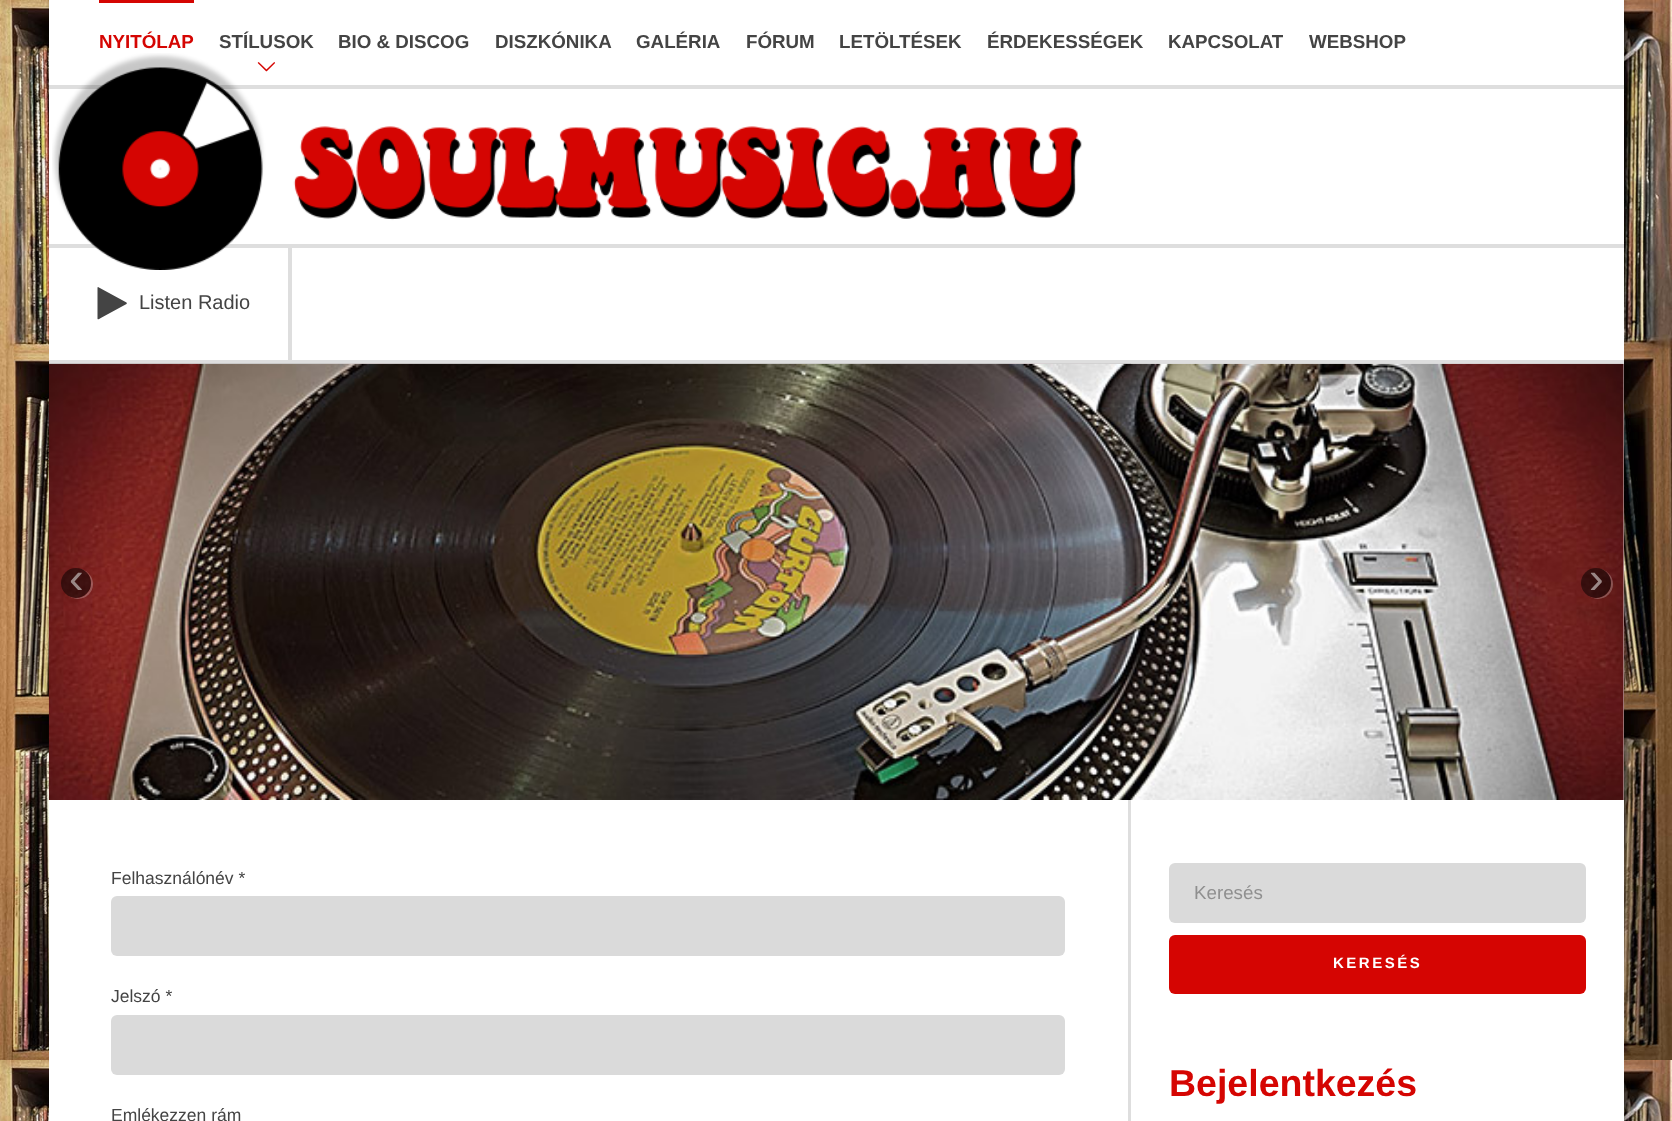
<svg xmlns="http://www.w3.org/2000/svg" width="1672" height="1121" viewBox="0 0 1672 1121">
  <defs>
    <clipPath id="clip1"><path d="M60 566H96V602H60ZM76 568C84.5 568 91 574.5 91 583C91 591.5 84.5 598 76 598C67.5 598 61 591.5 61 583C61 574.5 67.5 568 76 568Z" clip-rule="evenodd"/></clipPath>
    <clipPath id="clip2"><path d="M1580 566H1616V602H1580ZM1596 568C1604.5 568 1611 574.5 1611 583C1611 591.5 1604.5 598 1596 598C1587.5 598 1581 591.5 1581 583C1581 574.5 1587.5 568 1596 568Z" clip-rule="evenodd"/></clipPath>
  </defs>
  <rect width="100%" height="100%" fill="rgb(255,255,255)"/>
  <image x="0" y="0" width="1672" height="1121" href="pic1.png"/>
  <rect x="49" y="1" width="1575" height="85" fill="rgba(0,0,0,0.27)" filter="blur(2px)"/>
  <rect x="49" y="0" width="1575" height="85" fill="rgb(255,255,255)"/>
  <rect x="99" y="0" width="95" height="3" fill="rgb(213,5,2)"/>
  <text x="99" y="48" font-family="Liberation Sans" font-size="18.75" font-weight="bold" fill="rgb(213,5,2)">NYITÓLAP</text>
  <text x="219" y="48" font-family="Liberation Sans" font-size="18.75" font-weight="bold" fill="rgb(68,68,68)">STÍLUSOK</text>
  <rect x="49" y="89" width="1575" height="155" fill="rgb(255,255,255)"/>
  <rect x="49" y="85" width="1575" height="4" fill="rgb(222,222,222)"/>
  <rect x="49" y="244" width="1575" height="4" fill="rgb(222,222,222)"/>
  <rect x="49" y="248" width="1575" height="112" fill="rgb(255,255,255)"/>
  <rect x="288" y="248" width="4" height="112" fill="rgb(222,222,222)"/>
  <image x="52" y="53" width="1030" height="217" href="pic3.png"/>
  <image x="257" y="62" width="18" height="10" href="pic2.png"/>
  <g font-family="Liberation Sans" font-size="18.75" font-weight="bold" fill="rgb(68,68,68)">
    <text x="338" y="48">BIO &amp; DISCOG</text>
    <text x="495" y="48">DISZKÓNIKA</text>
    <text x="636" y="48">GALÉRIA</text>
    <text x="746" y="48">FÓRUM</text>
    <text x="839" y="48">LETÖLTÉSEK</text>
    <text x="987" y="48">ÉRDEKESSÉGEK</text>
    <text x="1168" y="48">KAPCSOLAT</text>
    <text x="1309" y="48">WEBSHOP</text>
  </g>
  <rect x="49" y="360" width="1575" height="4" fill="rgb(222,222,222)"/>
  <path d="M126.5 304L103.5 316.5C98 319.5 97.5 320 97.5 318.5V287.5L98 287L126.5 302.5C127 303 127 303.5 126.5 304Z" fill="rgb(68,68,68)"/>
  <text x="139" y="309" font-family="Liberation Sans" font-size="20" fill="rgb(68,68,68)">Listen Radio</text>
  <rect x="1623" y="364" width="1" height="436" fill="rgba(255,255,255,0.9)"/>
  <image x="48" y="363" width="1083" height="301" href="pic4.png"/>
  <image x="48" y="363" width="1576" height="437" href="pic5.png"/>
  <g clip-path="url(#clip1)">
    <rect x="63" y="569" width="30" height="30" rx="15" fill="rgba(255,255,255,0.25)" filter="blur(0.5px)"/>
  </g>
  <circle cx="76" cy="583" r="15" fill="rgba(0,0,0,0.5)"/>
  <text x="69" y="593" font-family="Liberation Sans" font-size="44" fill="rgb(154,135,134)">‹</text>
  <g clip-path="url(#clip2)">
    <rect x="1583" y="569" width="30" height="30" rx="15" fill="rgba(255,255,255,0.25)" filter="blur(0.5px)"/>
  </g>
  <circle cx="1596" cy="583" r="15" fill="rgba(0,0,0,0.5)"/>
  <text x="1589" y="593" font-family="Liberation Sans" font-size="44" fill="rgb(154,135,134)">›</text>
  <rect x="49" y="800" width="1079" height="321" fill="rgb(255,255,255)"/>
  <rect x="1128" y="800" width="3" height="321" fill="rgb(222,222,222)"/>
  <text x="111" y="884" font-family="Liberation Sans" font-size="17.5" fill="rgb(68,68,68)">Felhasználónév *</text>
  <rect x="111" y="896" width="954" height="60" rx="6" fill="rgb(218,218,218)"/>
  <text x="111" y="1002" font-family="Liberation Sans" font-size="17.5" fill="rgb(68,68,68)">Jelszó *</text>
  <rect x="111" y="1015" width="954" height="60" rx="6" fill="rgb(218,218,218)"/>
  <text x="111" y="1121" font-family="Liberation Sans" font-size="17.5" fill="rgb(68,68,68)">Emlékezzen rám</text>
  <rect x="1131" y="800" width="493" height="321" fill="rgb(255,255,255)"/>
  <rect x="1169" y="863" width="417" height="60" rx="6" fill="rgb(218,218,218)"/>
  <text x="1194" y="899" font-family="Liberation Sans" font-size="18.75" fill="rgb(143,143,143)">Keresés</text>
  <rect x="1169" y="935" width="417" height="59" rx="6" fill="rgb(213,5,2)"/>
  <text x="1333" y="968" font-family="Liberation Sans" font-size="15" font-weight="bold" letter-spacing="2.5" fill="rgb(255,255,255)">KERESÉS</text>
  <text x="1169" y="1096" font-family="Liberation Sans" font-size="37.5" font-weight="bold" fill="rgb(213,5,2)">Bejelentkezés</text>
</svg>
